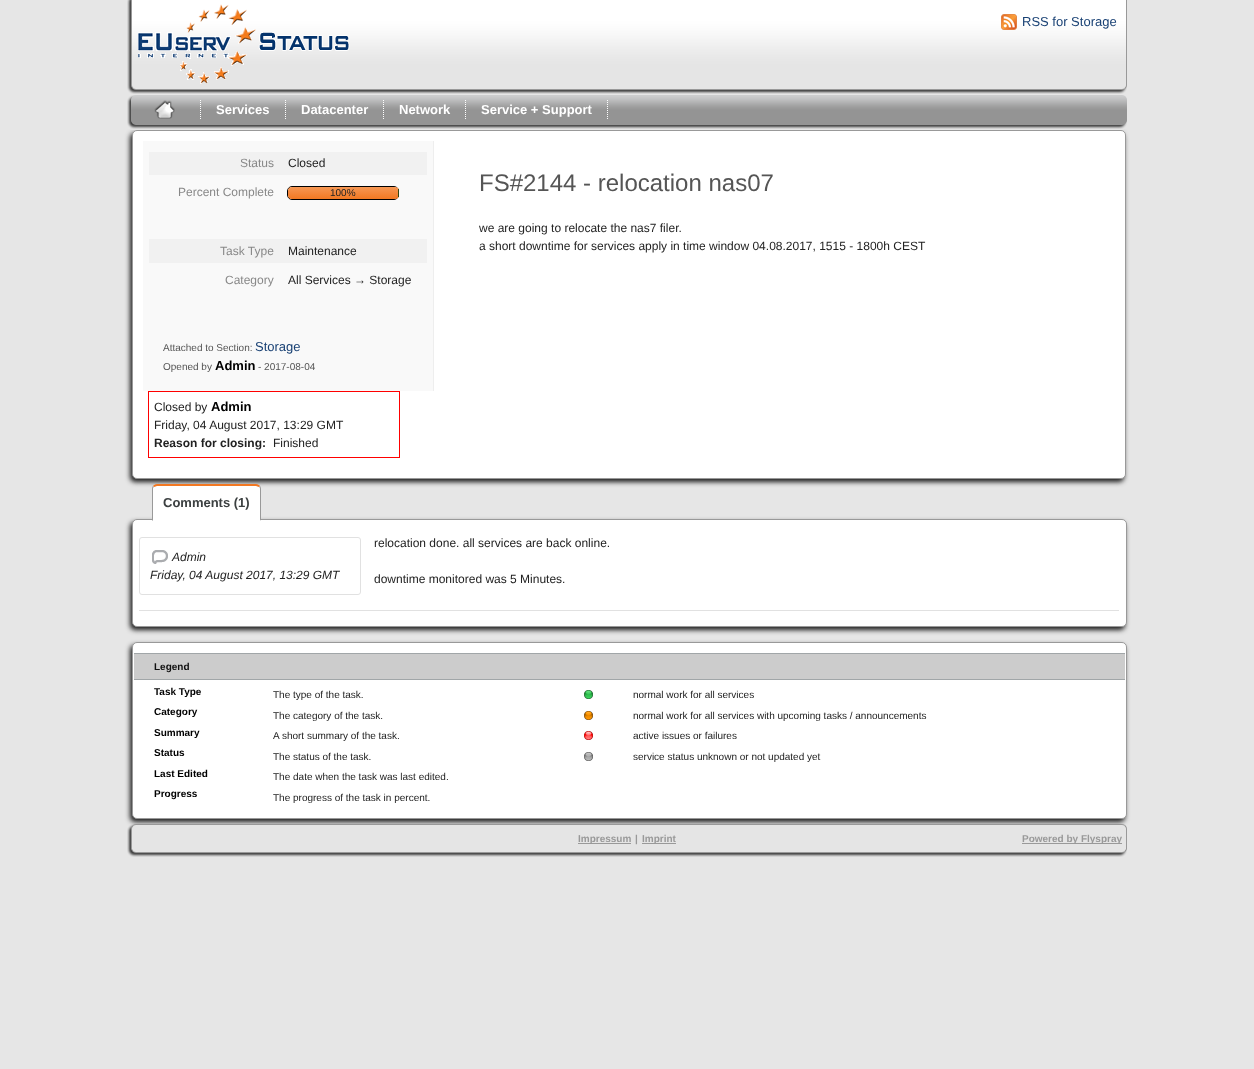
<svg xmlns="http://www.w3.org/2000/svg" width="1254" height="1069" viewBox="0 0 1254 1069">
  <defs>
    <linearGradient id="g1" gradientUnits="userSpaceOnUse" x1="343" y1="187" x2="343" y2="199"><stop offset="0" stop-color="rgb(246,151,84)"/><stop offset="1" stop-color="rgb(242,120,34)"/></linearGradient>
  </defs>
  <rect width="100%" height="100%" fill="rgb(230,230,230)"/>
  <image x="127" y="0" width="1000" height="94" href="pic1.png"/>
  <image x="138" y="4" width="212" height="80" href="pic2.png"/>
  <image x="1001" y="14" width="16" height="16" href="pic3.png"/>
  <text x="1022" y="26" font-family="Liberation Sans" font-size="13" fill="rgb(25,65,116)">RSS for Storage</text>
  <rect x="130" y="133" width="994" height="349" rx="5" fill="rgb(29,29,29)" filter="blur(2.5px)"/>
  <rect x="130" y="128" width="994" height="2" fill="rgb(229,229,229)"/>
  <image x="127" y="95" width="1000" height="34" href="pic4.png"/>
  <path d="M200.5 100V120" fill="none" stroke="rgb(255,255,255)" stroke-dasharray="1 1"/>
  <image x="154" y="100" width="21" height="19" href="pic5.png"/>
  <path d="M285.5 100V120" fill="none" stroke="rgb(255,255,255)" stroke-dasharray="1 1"/>
  <text x="216" y="114" font-family="Liberation Sans" font-size="13" font-weight="bold" fill="rgb(255,255,255)">Services</text>
  <path d="M383.5 100V120" fill="none" stroke="rgb(255,255,255)" stroke-dasharray="1 1"/>
  <text x="301" y="114" font-family="Liberation Sans" font-size="13" font-weight="bold" fill="rgb(255,255,255)">Datacenter</text>
  <path d="M465.5 100V120" fill="none" stroke="rgb(255,255,255)" stroke-dasharray="1 1"/>
  <text x="399" y="114" font-family="Liberation Sans" font-size="13" font-weight="bold" fill="rgb(255,255,255)">Network</text>
  <path d="M607.5 100V120" fill="none" stroke="rgb(255,255,255)" stroke-dasharray="1 1"/>
  <text x="481" y="114" font-family="Liberation Sans" font-size="13" font-weight="bold" fill="rgb(255,255,255)">Service + Support</text>
  <rect x="132.5" y="130.5" width="993" height="348" rx="4.5" fill="rgb(255,255,255)" stroke="rgb(153,153,153)"/>
  <rect x="143" y="141" width="290" height="250" fill="rgb(249,249,249)"/>
  <rect x="433" y="141" width="1" height="250" fill="rgb(238,238,238)"/>
  <rect x="149" y="152" width="278" height="23" fill="rgb(241,241,241)"/>
  <text x="240" y="167" font-family="Liberation Sans" font-size="12" fill="rgb(136,136,136)">Status</text>
  <text x="288" y="167" font-family="Liberation Sans" font-size="12" fill="rgb(34,34,34)">Closed</text>
  <text x="178" y="196" font-family="Liberation Sans" font-size="12" fill="rgb(136,136,136)">Percent Complete</text>
  <rect x="287.5" y="186.5" width="111" height="13" rx="4.5" fill="none" stroke="rgb(0,0,0)"/>
  <rect x="288" y="187" width="111" height="12" rx="4" fill="url(#g1)"/>
  <rect x="398" y="189" width="1" height="8" fill="rgb(45,71,19)"/>
  <text x="330" y="196" font-family="Liberation Sans" font-size="10" fill="rgb(34,34,34)">100%</text>
  <rect x="149" y="239" width="278" height="24" fill="rgb(241,241,241)"/>
  <text x="220" y="255" font-family="Liberation Sans" font-size="12" fill="rgb(136,136,136)">Task Type</text>
  <text x="288" y="255" font-family="Liberation Sans" font-size="12" fill="rgb(34,34,34)">Maintenance</text>
  <text x="225" y="284" font-family="Liberation Sans" font-size="12" fill="rgb(136,136,136)">Category</text>
  <text x="288" y="284" font-family="Liberation Sans" font-size="12" fill="rgb(34,34,34)">All Services → Storage</text>
  <text x="163" y="351" font-family="Liberation Sans" font-size="10" fill="rgb(85,85,85)">Attached to Section:</text>
  <text x="255" y="351" font-family="Liberation Sans" font-size="13" fill="rgb(25,65,116)">Storage</text>
  <text x="163" y="370" font-family="Liberation Sans" font-size="10" fill="rgb(85,85,85)">Opened by</text>
  <text x="215" y="370" font-family="Liberation Sans" font-size="13" font-weight="bold" fill="rgb(0,0,0)">Admin</text>
  <text x="258" y="370" font-family="Liberation Sans" font-size="10" fill="rgb(85,85,85)">- 2017-08-04</text>
  <text x="479" y="191" font-family="Liberation Sans" font-size="24" fill="rgb(85,85,85)">FS#2144 - relocation nas07</text>
  <g font-family="Liberation Sans" font-size="12" fill="rgb(34,34,34)">
    <text>
      <tspan x="479" y="232">we are going to relocate the nas7 filer.</tspan>
      <tspan x="479" y="250">a short downtime for services apply in time window 04.08.2017, 1515 - 1800h CEST</tspan>
    </text>
  </g>
  <rect x="148.5" y="391.5" width="251" height="66" fill="none" stroke="rgb(255,0,0)"/>
  <text x="154" y="411" font-family="Liberation Sans" font-size="12" fill="rgb(34,34,34)">Closed by</text>
  <text x="211" y="411" font-family="Liberation Sans" font-size="13" font-weight="bold" fill="rgb(0,0,0)">Admin</text>
  <text x="154" y="429" font-family="Liberation Sans" font-size="12" fill="rgb(34,34,34)">Friday, 04 August 2017, 13:29 GMT</text>
  <text x="154" y="447" font-family="Liberation Sans" font-size="12" font-weight="bold" fill="rgb(34,34,34)">Reason for closing:</text>
  <text x="273" y="447" font-family="Liberation Sans" font-size="12" fill="rgb(34,34,34)">Finished</text>
  <rect x="130" y="522" width="995" height="108" rx="5" fill="rgb(29,29,29)" filter="blur(2.5px)"/>
  <rect x="132.5" y="519.5" width="994" height="107" rx="4.5" fill="rgb(255,255,255)" stroke="rgb(153,153,153)"/>
  <path d="M157 486H256C258 486 260 487 260 489V520H153V489C153 487 155 486 157 486Z" fill="rgb(255,255,255)"/>
  <path d="M157 484C155 484 154 485 153 486L154 487L157 486H256L259 487L260 486C259 485 258 484 256 484Z" fill="rgb(242,120,34)"/>
  <path d="M261 521V489C261 488 260.5 486.5 260 486L259.5 487.5C260 487.5 260 488.5 260 489V520Z" fill="rgb(153,153,153)"/>
  <path d="M261 521L260 520H153L152 521Z" fill="rgb(255,255,255)"/>
  <path d="M152 521L153 520V489C153 488.5 153 487.5 153.5 487.5L153 486C152.5 486.5 152 488 152 489Z" fill="rgb(153,153,153)"/>
  <text x="163" y="507" font-family="Liberation Sans" font-size="13" font-weight="bold" fill="rgb(60,64,65)">Comments (1)</text>
  <rect x="139" y="610" width="980" height="1" fill="rgb(225,225,225)"/>
  <rect x="139.5" y="537.5" width="221" height="57" rx="2.5" fill="none" stroke="rgb(225,225,225)"/>
  <image x="152" y="550" width="16" height="14" href="pic6.png"/>
  <g font-family="Liberation Sans" font-size="12" font-style="italic" fill="rgb(34,34,34)">
    <text x="172" y="561">Admin</text>
    <text x="150" y="579">Friday, 04 August 2017, 13:29 GMT</text>
  </g>
  <g font-family="Liberation Sans" font-size="12" fill="rgb(34,34,34)">
    <text x="374" y="547">relocation done. all services are back online.</text>
    <text x="374" y="583">downtime monitored was 5 Minutes.</text>
  </g>
  <rect x="130" y="645" width="995" height="177" rx="5" fill="rgb(29,29,29)" filter="blur(2.5px)"/>
  <rect x="132.5" y="642.5" width="994" height="176" rx="4.5" fill="rgb(255,255,255)" stroke="rgb(153,153,153)"/>
  <rect x="134" y="654" width="991" height="25" fill="rgb(204,204,204)"/>
  <rect x="134" y="653" width="991" height="1" fill="rgb(161,166,168)"/>
  <rect x="134" y="679" width="991" height="1" fill="rgb(161,166,168)"/>
  <text x="154" y="670" font-family="Liberation Sans" font-size="10" font-weight="bold" fill="rgb(17,17,17)">Legend</text>
  <text x="154" y="695" font-family="Liberation Sans" font-size="10" font-weight="bold" fill="rgb(0,0,0)">Task Type</text>
  <text x="273" y="698" font-family="Liberation Sans" font-size="10" fill="rgb(34,34,34)">The type of the task.</text>
  <image x="584" y="690" width="9" height="9" href="pic7.png"/>
  <text x="633" y="698" font-family="Liberation Sans" font-size="10" fill="rgb(34,34,34)">normal work for all services</text>
  <text x="154" y="715" font-family="Liberation Sans" font-size="10" font-weight="bold" fill="rgb(0,0,0)">Category</text>
  <text x="273" y="719" font-family="Liberation Sans" font-size="10" fill="rgb(34,34,34)">The category of the task.</text>
  <image x="584" y="711" width="9" height="9" href="pic8.png"/>
  <text x="633" y="719" font-family="Liberation Sans" font-size="10" fill="rgb(34,34,34)">normal work for all services with upcoming tasks / announcements</text>
  <text x="154" y="736" font-family="Liberation Sans" font-size="10" font-weight="bold" fill="rgb(0,0,0)">Summary</text>
  <text x="273" y="739" font-family="Liberation Sans" font-size="10" fill="rgb(34,34,34)">A short summary of the task.</text>
  <image x="584" y="731" width="9" height="9" href="pic9.png"/>
  <text x="633" y="739" font-family="Liberation Sans" font-size="10" fill="rgb(34,34,34)">active issues or failures</text>
  <text x="154" y="756" font-family="Liberation Sans" font-size="10" font-weight="bold" fill="rgb(0,0,0)">Status</text>
  <text x="273" y="760" font-family="Liberation Sans" font-size="10" fill="rgb(34,34,34)">The status of the task.</text>
  <image x="584" y="752" width="9" height="9" href="pic10.png"/>
  <text x="633" y="760" font-family="Liberation Sans" font-size="10" fill="rgb(34,34,34)">service status unknown or not updated yet</text>
  <text x="154" y="777" font-family="Liberation Sans" font-size="10" font-weight="bold" fill="rgb(0,0,0)">Last Edited</text>
  <text x="273" y="780" font-family="Liberation Sans" font-size="10" fill="rgb(34,34,34)">The date when the task was last edited.</text>
  <text x="154" y="797" font-family="Liberation Sans" font-size="10" font-weight="bold" fill="rgb(0,0,0)">Progress</text>
  <text x="273" y="801" font-family="Liberation Sans" font-size="10" fill="rgb(34,34,34)">The progress of the task in percent.</text>
  <image x="127" y="824" width="1000" height="5" href="pic11.png"/>
  <image x="127" y="829" width="1000" height="20" href="pic12.png"/>
  <rect x="578" y="843" width="53" height="1" fill="rgb(153,153,153)"/>
  <g font-family="Liberation Sans" font-size="10" font-weight="bold" fill="rgb(153,153,153)">
    <text x="578" y="842">Impressum</text>
    <text x="635" y="842">|</text>
  </g>
  <rect x="642" y="843" width="34" height="1" fill="rgb(153,153,153)"/>
  <text x="642" y="842" font-family="Liberation Sans" font-size="10" font-weight="bold" fill="rgb(153,153,153)">Imprint</text>
  <rect x="1022" y="843" width="100" height="1" fill="rgb(153,153,153)"/>
  <text x="1022" y="842" font-family="Liberation Sans" font-size="10" font-weight="bold" fill="rgb(153,153,153)">Powered by Flyspray</text>
  <image x="127" y="849" width="1000" height="8" href="pic13.png"/>
</svg>
